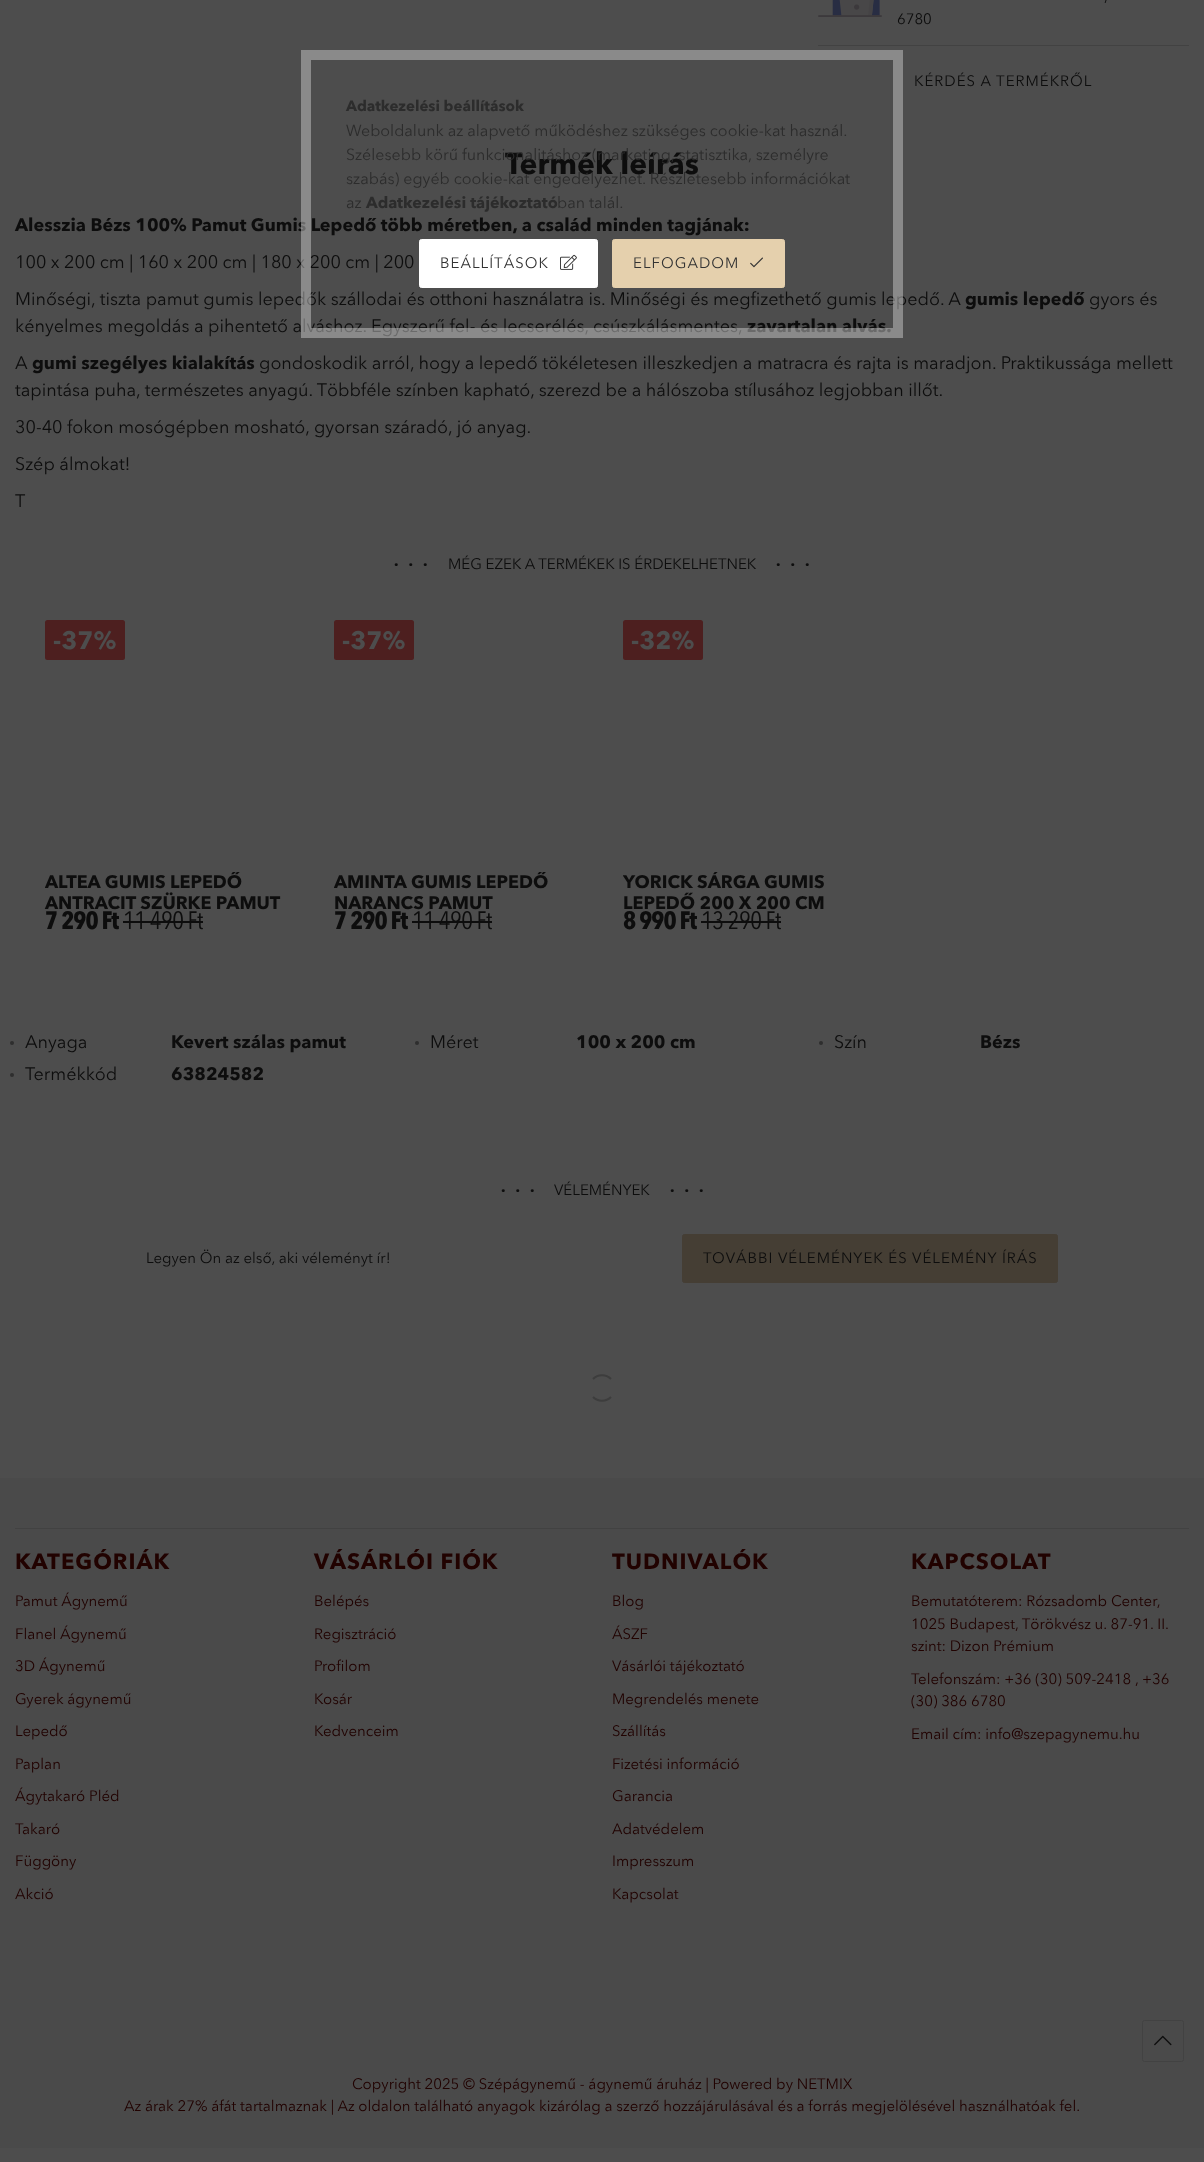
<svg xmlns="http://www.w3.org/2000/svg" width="1204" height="2162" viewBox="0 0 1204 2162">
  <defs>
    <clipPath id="clip1"><rect x="45" y="872" width="249" height="43"/></clipPath>
    <clipPath id="clip2"><rect x="334" y="872" width="249" height="43"/></clipPath>
    <clipPath id="clip3"><rect x="623" y="872" width="249" height="43"/></clipPath>
  </defs>
  <rect width="100%" height="100%" fill="rgb(77,77,77)"/>
  <image x="818" y="0" width="64" height="17" href="pic1.png"/>
  <g font-family="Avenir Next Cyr" font-size="15" fill="rgb(13,13,13)">
    <text x="1104" y="1">,</text>
    <text x="897" y="24">6780</text>
  </g>
  <rect x="818" y="45" width="371" height="1" fill="rgb(66,66,66)"/>
  <text x="914" y="86" font-family="Avenir Next Cyr" font-size="15" letter-spacing="1" fill="rgb(13,13,13)">KÉRDÉS A TERMÉKRŐL</text>
  <text x="505" y="174" font-family="Avenir Next Cyr" font-size="30" font-weight="bold" fill="rgb(13,13,13)">Termék leírás</text>
  <text x="15" y="231" font-family="Avenir Next Cyr" font-size="18" font-weight="bold" fill="rgb(13,13,13)">Alesszia Bézs 100% Pamut Gumis Lepedő több méretben, a család minden tagjának:</text>
  <g font-family="Avenir Next Cyr" font-size="18" fill="rgb(13,13,13)">
    <text x="15" y="268">100 x 200 cm | 160 x 200 cm | 180 x 200 cm | 200</text>
    <text x="15" y="305">Minőségi, tiszta pamut gumis lepedők szállodai és otthoni használatra is. Minőségi és megfizethető gumis lepedő. A</text>
  </g>
  <text x="965" y="305" font-family="Avenir Next Cyr" font-size="18" font-weight="bold" fill="rgb(13,13,13)">gumis lepedő</text>
  <g font-family="Avenir Next Cyr" font-size="18" fill="rgb(13,13,13)">
    <text x="1089" y="305">gyors és</text>
    <text x="15" y="332">kényelmes megoldás a pihentető alváshoz. Egyszerű fel- és lecserélés, csúszkálásmentes,</text>
  </g>
  <text x="747" y="332" font-family="Avenir Next Cyr" font-size="18" font-weight="bold" fill="rgb(13,13,13)">zavartalan alvás.</text>
  <text x="15" y="369" font-family="Avenir Next Cyr" font-size="18" fill="rgb(13,13,13)">A</text>
  <text x="32" y="369" font-family="Avenir Next Cyr" font-size="18" font-weight="bold" fill="rgb(13,13,13)">gumi szegélyes kialakítás</text>
  <g font-family="Avenir Next Cyr" font-size="18" fill="rgb(13,13,13)">
    <text x="259" y="369">gondoskodik arról, hogy a lepedő tökéletesen illeszkedjen a matracra és rajta is maradjon. Praktikussága mellett</text>
    <text x="15" y="396">tapintása puha, természetes anyagú. Többféle színben kapható, szerezd be a hálószoba stílusához legjobban illőt.</text>
    <text x="15" y="433">30-40 fokon mosógépben mosható, gyorsan száradó, jó anyag.</text>
    <text x="15" y="470">Szép álmokat!</text>
    <text x="15" y="507">T</text>
  </g>
  <text x="394" y="569" font-family="Avenir Next Cyr" font-size="15" font-weight="bold" letter-spacing="10" fill="rgb(13,13,13)">∙∙∙</text>
  <text x="448" y="569" font-family="Avenir Next Cyr" font-size="15" fill="rgb(13,13,13)">MÉG EZEK A TERMÉKEK IS ÉRDEKELHETNEK</text>
  <text x="776" y="569" font-family="Avenir Next Cyr" font-size="15" font-weight="bold" letter-spacing="10" fill="rgb(13,13,13)">∙∙∙</text>
  <rect x="45" y="620" width="80" height="40" rx="2.5" fill="rgb(77,31,31)"/>
  <text x="53" y="649" font-family="Avenir Next Cyr" font-size="25" font-weight="bold" fill="rgb(77,77,77)">-37%</text>
  <g clip-path="url(#clip1)">
    <text x="45" y="888" font-family="Avenir Next Cyr" font-size="18" font-weight="bold" fill="rgb(13,13,13)">ALTEA GUMIS LEPEDŐ</text>
  </g>
  <text x="45" y="909" font-family="Avenir Next Cyr" font-size="18" font-weight="bold" fill="rgb(13,13,13)">ANTRACIT SZÜRKE PAMUT</text>
  <text x="45" y="929" font-family="Avenir Next" font-size="25" font-weight="bold" letter-spacing="-1" fill="rgb(13,13,13)">7 290 Ft</text>
  <text x="123" y="929" font-family="Avenir Next" font-size="25" letter-spacing="-0.5" fill="rgb(13,13,13)">11 490 Ft</text>
  <rect x="123" y="921" width="80" height="2" fill="rgb(13,13,13)"/>
  <rect x="334" y="620" width="80" height="40" rx="2.5" fill="rgb(77,31,31)"/>
  <text x="342" y="649" font-family="Avenir Next Cyr" font-size="25" font-weight="bold" fill="rgb(77,77,77)">-37%</text>
  <g clip-path="url(#clip2)">
    <text x="334" y="888" font-family="Avenir Next Cyr" font-size="18" font-weight="bold" fill="rgb(13,13,13)">AMINTA GUMIS LEPEDŐ</text>
  </g>
  <text x="334" y="909" font-family="Avenir Next Cyr" font-size="18" font-weight="bold" fill="rgb(13,13,13)">NARANCS PAMUT</text>
  <text x="334" y="929" font-family="Avenir Next" font-size="25" font-weight="bold" letter-spacing="-1" fill="rgb(13,13,13)">7 290 Ft</text>
  <text x="412" y="929" font-family="Avenir Next" font-size="25" letter-spacing="-0.5" fill="rgb(13,13,13)">11 490 Ft</text>
  <rect x="412" y="921" width="80" height="2" fill="rgb(13,13,13)"/>
  <rect x="623" y="620" width="80" height="40" rx="2.5" fill="rgb(77,31,31)"/>
  <text x="631" y="649" font-family="Avenir Next Cyr" font-size="25" font-weight="bold" fill="rgb(77,77,77)">-32%</text>
  <g clip-path="url(#clip3)">
    <text x="623" y="888" font-family="Avenir Next Cyr" font-size="18" font-weight="bold" fill="rgb(13,13,13)">YORICK SÁRGA GUMIS</text>
  </g>
  <text x="623" y="909" font-family="Avenir Next Cyr" font-size="18" font-weight="bold" fill="rgb(13,13,13)">LEPEDŐ 200 X 200 CM</text>
  <text x="623" y="929" font-family="Avenir Next" font-size="25" font-weight="bold" letter-spacing="-1" fill="rgb(13,13,13)">8 990 Ft</text>
  <text x="701" y="929" font-family="Avenir Next" font-size="25" letter-spacing="-0.5" fill="rgb(13,13,13)">13 290 Ft</text>
  <rect x="701" y="921" width="80" height="2" fill="rgb(13,13,13)"/>
  <circle cx="12" cy="1043" r="2" fill="rgb(46,46,46)"/>
  <text x="25" y="1048" font-family="Avenir Next Cyr" font-size="18" fill="rgb(13,13,13)">Anyaga</text>
  <text x="171" y="1048" font-family="Avenir Next Cyr" font-size="18" font-weight="bold" fill="rgb(13,13,13)">Kevert szálas pamut</text>
  <circle cx="417" cy="1043" r="2" fill="rgb(46,46,46)"/>
  <text x="430" y="1048" font-family="Avenir Next Cyr" font-size="18" fill="rgb(13,13,13)">Méret</text>
  <text x="576" y="1048" font-family="Avenir Next Cyr" font-size="18" font-weight="bold" fill="rgb(13,13,13)">100 x 200 cm</text>
  <circle cx="821" cy="1043" r="2" fill="rgb(46,46,46)"/>
  <text x="834" y="1048" font-family="Avenir Next Cyr" font-size="18" fill="rgb(13,13,13)">Szín</text>
  <text x="980" y="1048" font-family="Avenir Next Cyr" font-size="18" font-weight="bold" fill="rgb(13,13,13)">Bézs</text>
  <circle cx="12" cy="1075" r="2" fill="rgb(46,46,46)"/>
  <text x="25" y="1080" font-family="Avenir Next Cyr" font-size="18" fill="rgb(13,13,13)">Termékkód</text>
  <text x="171" y="1080" font-family="Avenir Next Cyr" font-size="18" font-weight="bold" fill="rgb(13,13,13)">63824582</text>
  <text x="501" y="1195" font-family="Avenir Next Cyr" font-size="15" font-weight="bold" letter-spacing="10" fill="rgb(13,13,13)">∙∙∙</text>
  <text x="554" y="1195" font-family="Avenir Next Cyr" font-size="15" fill="rgb(13,13,13)">VÉLEMÉNYEK</text>
  <text x="670" y="1195" font-family="Avenir Next Cyr" font-size="15" font-weight="bold" letter-spacing="10" fill="rgb(13,13,13)">∙∙∙</text>
  <text x="146" y="1263" font-family="Avenir Next Cyr" font-size="15" fill="rgb(13,13,13)">Legyen Ön az első, aki véleményt ír!</text>
  <rect x="682.5" y="1234.5" width="375" height="48" rx="2" fill="rgb(69,62,52)" stroke="rgb(69,62,52)"/>
  <text x="703" y="1263" font-family="Avenir Next Cyr" font-size="15" letter-spacing="1" fill="rgb(13,13,13)">TOVÁBBI VÉLEMÉNYEK ÉS VÉLEMÉNY ÍRÁS</text>
  <path d="M593 1379C598 1374 606 1374 611 1379M611 1397C606 1402 598 1402 593 1397" fill="none" stroke="rgb(61,61,61)" stroke-width="2"/>
  <rect x="0" y="1478" width="1204" height="670" fill="rgb(74,74,74)"/>
  <rect x="15" y="1528" width="1174" height="1" fill="rgb(66,66,66)"/>
  <text x="15" y="1569" font-family="Avenir Next Cyr" font-size="22" font-weight="bold" letter-spacing="1" fill="rgb(33,2,0)">KATEGÓRIÁK</text>
  <g font-family="Avenir Next Cyr" font-size="15" fill="rgb(33,2,0)">
    <text x="15" y="1606">Pamut Ágynemű</text>
    <text x="15" y="1639">Flanel Ágynemű</text>
    <text x="15" y="1671">3D Ágynemű</text>
    <text x="15" y="1704">Gyerek ágynemű</text>
    <text x="15" y="1736">Lepedő</text>
    <text x="15" y="1769">Paplan</text>
    <text x="15" y="1801">Ágytakaró Pléd</text>
    <text x="15" y="1834">Takaró</text>
    <text x="15" y="1866">Függöny</text>
    <text x="15" y="1899">Akció</text>
  </g>
  <text x="314" y="1569" font-family="Avenir Next Cyr" font-size="22" font-weight="bold" letter-spacing="1" fill="rgb(33,2,0)">VÁSÁRLÓI FIÓK</text>
  <g font-family="Avenir Next Cyr" font-size="15" fill="rgb(33,2,0)">
    <text x="314" y="1606">Belépés</text>
    <text x="314" y="1639">Regisztráció</text>
    <text x="314" y="1671">Profilom</text>
    <text x="314" y="1704">Kosár</text>
    <text x="314" y="1736">Kedvenceim</text>
  </g>
  <text x="612" y="1569" font-family="Avenir Next Cyr" font-size="22" font-weight="bold" letter-spacing="1" fill="rgb(33,2,0)">TUDNIVALÓK</text>
  <g font-family="Avenir Next Cyr" font-size="15" fill="rgb(33,2,0)">
    <text x="612" y="1606">Blog</text>
    <text x="612" y="1639">ÁSZF</text>
    <text x="612" y="1671">Vásárlói tájékoztató</text>
    <text x="612" y="1704">Megrendelés menete</text>
    <text x="612" y="1736">Szállítás</text>
    <text x="612" y="1769">Fizetési információ</text>
    <text x="612" y="1801">Garancia</text>
    <text x="612" y="1834">Adatvédelem</text>
    <text x="612" y="1866">Impresszum</text>
    <text x="612" y="1899">Kapcsolat</text>
  </g>
  <text x="911" y="1569" font-family="Avenir Next Cyr" font-size="22" font-weight="bold" letter-spacing="1" fill="rgb(33,2,0)">KAPCSOLAT</text>
  <g font-family="Avenir Next Cyr" font-size="15" fill="rgb(33,2,0)">
    <text>
      <tspan x="911" y="1606">Bemutatóterem: Rózsadomb Center,</tspan>
      <tspan x="911" y="1629">1025 Budapest, Törökvész u. 87-91. II.</tspan>
      <tspan x="911" y="1651">szint: Dizon Prémium</tspan>
    </text>
    <text>
      <tspan x="911" y="1684">Telefonszám: +36 (30) 509-2418 , +36</tspan>
      <tspan x="911" y="1706">(30) 386 6780</tspan>
    </text>
    <text x="911" y="1739">Email cím: info@szepagynemu.hu</text>
    <text x="352" y="2089">Copyright 2025 © Szépágynemű - ágynemű áruház | Powered by NETMIX</text>
    <text x="124" y="2111">Az árak 27% áfát tartalmaznak | Az oldalon található anyagok kizárólag a szerző hozzájárulásával és a forrás megjelölésével használhatóak fel.</text>
  </g>
  <rect x="306" y="55" width="592" height="278" fill="none" stroke="rgba(200,200,200,0.5)" stroke-width="10"/>
  <text x="346" y="111" font-family="Avenir Next Cyr" font-size="15" font-weight="bold" fill="rgb(44,44,44)">Adatkezelési beállítások</text>
  <g font-family="Avenir Next Cyr" font-size="16" fill="rgb(44,44,44)">
    <text>
      <tspan x="346" y="136">Weboldalunk az alapvető működéshez szükséges cookie-kat használ.</tspan>
      <tspan x="346" y="160">Szélesebb körű funkcionalitáshoz (marketing, statisztika, személyre</tspan>
      <tspan x="346" y="184">szabás) egyéb cookie-kat engedélyezhet. Részletesebb információkat</tspan>
      <tspan x="346" y="208">az</tspan>
    </text>
  </g>
  <text x="366" y="208" font-family="Avenir Next Cyr" font-size="16" font-weight="bold" fill="rgb(44,44,44)">Adatkezelési tájékoztató</text>
  <text x="557" y="208" font-family="Avenir Next Cyr" font-size="16" fill="rgb(44,44,44)">ban talál.</text>
  <rect x="419.5" y="239.5" width="178" height="48" rx="2" fill="rgb(255,255,255)" stroke="rgb(255,255,255)"/>
  <text x="440" y="268" font-family="Avenir Next Cyr" font-size="15" letter-spacing="1" fill="rgb(51,51,51)">BEÁLLÍTÁSOK</text>
  <image x="560" y="254" width="17" height="16" href="pic2.png"/>
  <rect x="612.5" y="239.5" width="172" height="48" rx="2" fill="rgb(229,208,173)" stroke="rgb(229,208,173)"/>
  <text x="633" y="268" font-family="Avenir Next Cyr" font-size="15" letter-spacing="1" fill="rgb(51,51,51)">ELFOGADOM</text>
  <image x="750" y="257" width="13" height="11" href="pic3.png"/>
  <rect x="1142.5" y="2020.5" width="41" height="41" rx="2" fill="none" stroke="rgb(66,66,66)"/>
  <image x="1154" y="2035" width="18" height="11" href="pic4.png"/>
</svg>
